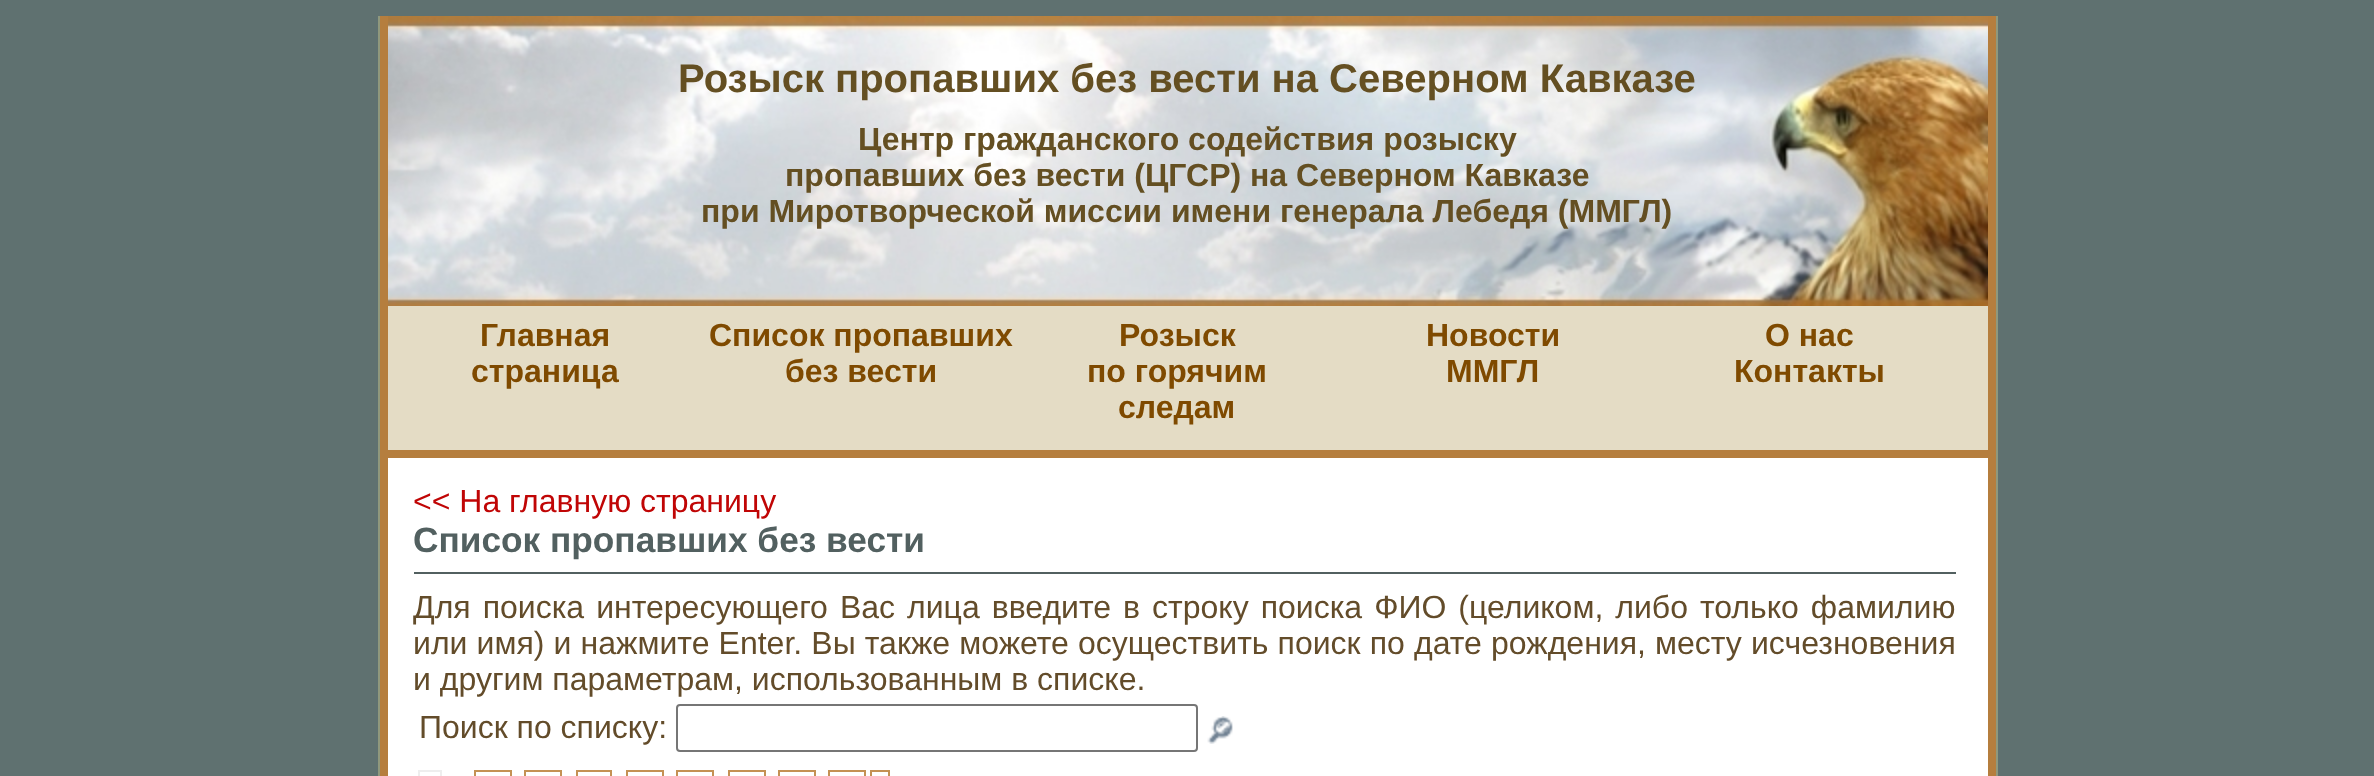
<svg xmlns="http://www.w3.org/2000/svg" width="2374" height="776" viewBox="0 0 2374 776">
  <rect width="100%" height="100%" fill="rgb(95,113,112)"/>
  <rect x="1996" y="16" width="2" height="760" fill="rgb(143,152,125)"/>
  <rect x="378" y="16" width="2" height="760" fill="rgb(143,152,125)"/>
  <rect x="1988" y="16" width="8" height="760" fill="rgb(181,126,62)"/>
  <rect x="380" y="16" width="8" height="760" fill="rgb(181,126,62)"/>
  <image x="388" y="16" width="1600" height="290" href="pic1.png"/>
  <text x="678" y="92" font-family="Liberation Sans" font-size="40" font-weight="bold" fill="rgb(100,79,34)">Розыск пропавших без вести на Северном Кавказе</text>
  <g font-family="Liberation Sans" font-size="32" font-weight="bold" fill="rgb(100,79,34)">
    <text x="858" y="150">Центр гражданского содействия розыску</text>
    <text x="785" y="186">пропавших без вести (ЦГСР) на Северном Кавказе</text>
    <text x="701" y="222">при Миротворческой миссии имени генерала Лебедя (ММГЛ)</text>
  </g>
  <rect x="388" y="458" width="1600" height="318" fill="rgb(255,255,255)"/>
  <rect x="388" y="306" width="1600" height="144" fill="rgb(228,220,197)"/>
  <rect x="388" y="450" width="1600" height="8" fill="rgb(181,126,62)"/>
  <g font-family="Liberation Sans" font-size="32" font-weight="bold" fill="rgb(127,74,0)">
    <text x="480" y="346">Главная</text>
    <text x="471" y="382">страница</text>
    <text x="709" y="346">Список пропавших</text>
    <text x="785" y="382">без вести</text>
    <text x="1119" y="346">Розыск</text>
    <text x="1087" y="382">по горячим</text>
    <text x="1118" y="418">следам</text>
    <text x="1426" y="346">Новости</text>
    <text x="1446" y="382">ММГЛ</text>
    <text x="1765" y="346">О нас</text>
    <text x="1734" y="382">Контакты</text>
  </g>
  <text x="413" y="512" font-family="Liberation Sans" font-size="32" fill="rgb(192,5,5)">&lt;&lt; На главную страницу</text>
  <rect x="414" y="572" width="1542" height="2" fill="rgb(82,96,96)"/>
  <text x="413" y="552" font-family="Liberation Sans" font-size="35.25" font-weight="bold" fill="rgb(82,96,96)">Список пропавших без вести</text>
  <g font-family="Liberation Sans" font-size="32" fill="rgb(99,76,42)">
    <text>
      <tspan x="413" y="618" word-spacing="3.1">Для поиска интересующего Вас лица введите в строку поиска ФИО (целиком, либо только фамилию</tspan>
      <tspan x="413" y="654" word-spacing="0.25">или имя) и нажмите Enter. Вы также можете осуществить поиск по дате рождения, месту исчезновения</tspan>
      <tspan x="413" y="690">и другим параметрам, использованным в списке.</tspan>
    </text>
    <text x="419" y="738">Поиск по списку:</text>
  </g>
  <rect x="677" y="705" width="520" height="46" rx="3" fill="none" stroke="rgb(118,118,118)" stroke-width="2"/>
  <image x="1207" y="716" width="26" height="28" href="pic2.png"/>
  <rect x="419" y="771" width="22" height="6" fill="none" stroke="rgb(238,238,238)" stroke-width="2"/>
  <rect x="475" y="771" width="36" height="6" fill="none" stroke="rgb(196,145,84)" stroke-width="2"/>
  <rect x="525" y="771" width="36" height="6" fill="none" stroke="rgb(196,145,84)" stroke-width="2"/>
  <rect x="577" y="771" width="34" height="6" fill="none" stroke="rgb(196,145,84)" stroke-width="2"/>
  <rect x="627" y="771" width="36" height="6" fill="none" stroke="rgb(196,145,84)" stroke-width="2"/>
  <rect x="677" y="771" width="36" height="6" fill="none" stroke="rgb(196,145,84)" stroke-width="2"/>
  <rect x="729" y="771" width="36" height="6" fill="none" stroke="rgb(196,145,84)" stroke-width="2"/>
  <rect x="779" y="771" width="36" height="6" fill="none" stroke="rgb(196,145,84)" stroke-width="2"/>
  <rect x="829" y="771" width="36" height="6" fill="none" stroke="rgb(196,145,84)" stroke-width="2"/>
  <rect x="871" y="771" width="18" height="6" fill="none" stroke="rgb(196,145,84)" stroke-width="2"/>
</svg>
